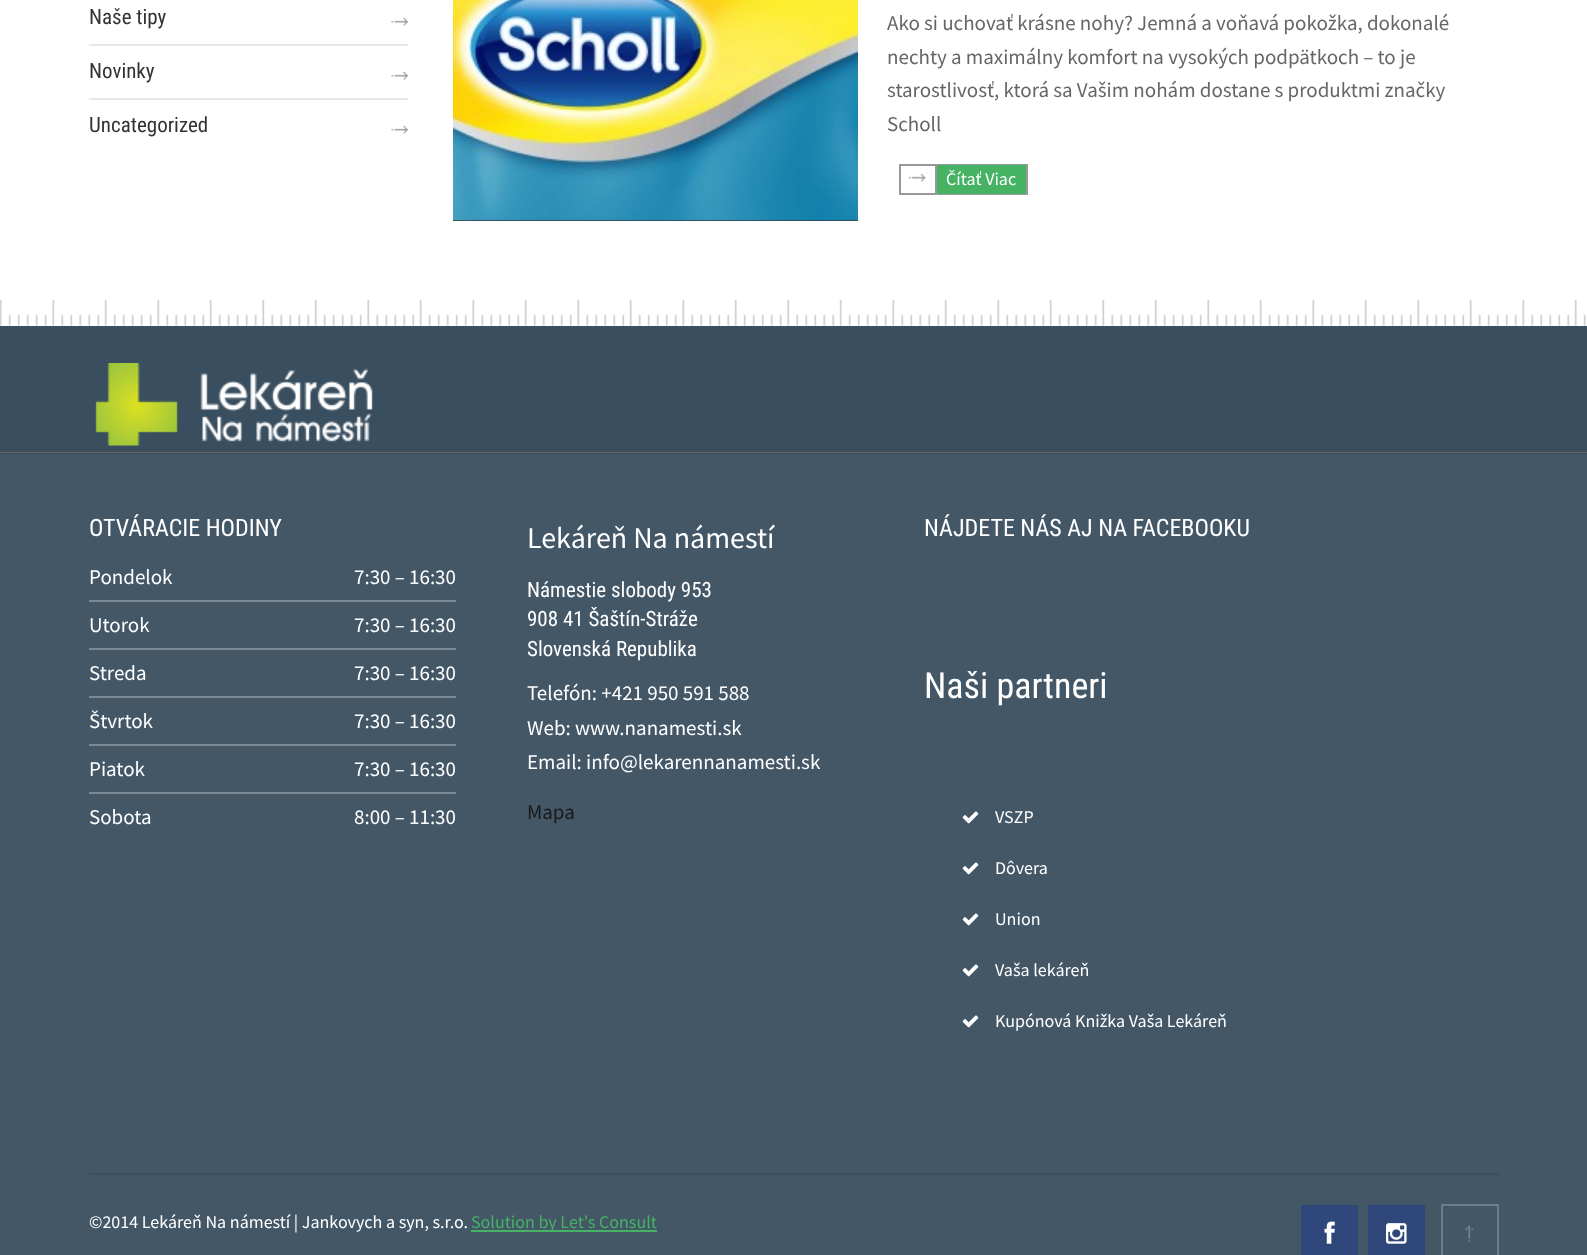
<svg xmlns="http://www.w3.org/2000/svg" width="1587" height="1255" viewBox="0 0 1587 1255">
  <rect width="100%" height="100%" fill="rgb(255,255,255)"/>
  <rect x="89" y="44" width="319" height="2" fill="rgb(230,232,237)"/>
  <text x="89" y="24" font-family="Roboto Condensed" font-size="21" fill="rgb(51,51,51)">Naše tipy</text>
  <image x="391" y="18" width="17" height="8" href="pic1.png"/>
  <rect x="89" y="98" width="319" height="2" fill="rgb(230,232,237)"/>
  <text x="89" y="78" font-family="Roboto Condensed" font-size="21" fill="rgb(51,51,51)">Novinky</text>
  <image x="391" y="72" width="17" height="8" href="pic1.png"/>
  <text x="89" y="132" font-family="Roboto Condensed" font-size="21" fill="rgb(51,51,51)">Uncategorized</text>
  <image x="391" y="126" width="17" height="8" href="pic1.png"/>
  <rect x="453" y="220" width="405" height="1" fill="rgb(59,59,59)"/>
  <image x="453" y="0" width="405" height="221" href="pic2.png"/>
  <g font-family="Source Sans Pro" font-size="21" fill="rgb(102,102,102)">
    <text>
      <tspan x="887" y="30">Ako si uchovať krásne nohy? Jemná a voňavá pokožka, dokonalé</tspan>
      <tspan x="887" y="64">nechty a maximálny komfort na vysokých podpätkoch – to je</tspan>
      <tspan x="887" y="97">starostlivosť, ktorá sa Vašim nohám dostane s produktmi značky</tspan>
      <tspan x="887" y="131">Scholl</tspan>
    </text>
  </g>
  <rect x="900" y="165" width="127" height="29" fill="none" stroke="rgb(153,153,153)" stroke-width="2"/>
  <image x="909" y="174" width="17" height="8" href="pic3.png"/>
  <rect x="937" y="165" width="89" height="29" fill="rgb(69,179,99)"/>
  <rect x="935" y="165" width="2" height="29" fill="rgb(153,153,153)"/>
  <text x="946" y="185" font-family="Source Sans Pro" font-size="18" fill="rgb(255,255,255)">Čítať Viac</text>
  <image x="0" y="300" width="1586" height="26" href="pic4.png"/>
  <rect x="0" y="452" width="1587" height="2" fill="rgb(102,102,102)"/>
  <rect x="0" y="326" width="1587" height="126" fill="rgb(57,78,95)"/>
  <image x="95" y="363" width="278" height="83" href="pic5.png"/>
  <rect x="0" y="453" width="1587" height="802" fill="rgba(57,78,95,0.95)"/>
  <text x="89" y="536" font-family="Roboto Condensed" font-size="24" fill="rgb(255,255,255)">OTVÁRACIE HODINY</text>
  <g font-family="Source Sans Pro" font-size="21" fill="rgb(255,255,255)">
    <text x="89" y="584">Pondelok</text>
    <text x="354" y="584">7:30 – 16:30</text>
  </g>
  <rect x="89" y="600" width="367" height="2" fill="rgb(123,137,149)"/>
  <g font-family="Source Sans Pro" font-size="21" fill="rgb(255,255,255)">
    <text x="89" y="632">Utorok</text>
    <text x="354" y="632">7:30 – 16:30</text>
  </g>
  <rect x="89" y="648" width="367" height="2" fill="rgb(123,137,149)"/>
  <g font-family="Source Sans Pro" font-size="21" fill="rgb(255,255,255)">
    <text x="89" y="680">Streda</text>
    <text x="354" y="680">7:30 – 16:30</text>
  </g>
  <rect x="89" y="696" width="367" height="2" fill="rgb(123,137,149)"/>
  <g font-family="Source Sans Pro" font-size="21" fill="rgb(255,255,255)">
    <text x="89" y="728">Štvrtok</text>
    <text x="354" y="728">7:30 – 16:30</text>
  </g>
  <rect x="89" y="744" width="367" height="2" fill="rgb(123,137,149)"/>
  <g font-family="Source Sans Pro" font-size="21" fill="rgb(255,255,255)">
    <text x="89" y="776">Piatok</text>
    <text x="354" y="776">7:30 – 16:30</text>
  </g>
  <rect x="89" y="792" width="367" height="2" fill="rgb(123,137,149)"/>
  <g font-family="Source Sans Pro" font-size="21" fill="rgb(255,255,255)">
    <text x="89" y="824">Sobota</text>
    <text x="354" y="824">8:00 – 11:30</text>
  </g>
  <text x="527" y="548" font-family="Source Sans Pro" font-size="30" fill="rgb(255,255,255)">Lekáreň Na námestí</text>
  <g font-family="Roboto Condensed" font-size="21" fill="rgb(255,255,255)">
    <text>
      <tspan x="527" y="597">Námestie slobody 953</tspan>
      <tspan x="527" y="626">908 41 Šaštín-Stráže</tspan>
      <tspan x="527" y="656">Slovenská Republika</tspan>
    </text>
  </g>
  <g font-family="Source Sans Pro" font-size="21" fill="rgb(255,255,255)">
    <text>
      <tspan x="527" y="700">Telefón: +421 950 591 588</tspan>
      <tspan x="527" y="735">Web: www.nanamesti.sk</tspan>
      <tspan x="527" y="769">Email: info@lekarennanamesti.sk</tspan>
    </text>
  </g>
  <text x="527" y="819" font-family="Source Sans Pro" font-size="21" fill="rgb(25,25,25)">Mapa</text>
  <text x="924" y="536" font-family="Roboto Condensed" font-size="24" fill="rgb(255,255,255)">NÁJDETE NÁS AJ NA FACEBOOKU</text>
  <text x="924" y="698" font-family="Roboto Condensed" font-size="36" fill="rgb(255,255,255)">Naši partneri</text>
  <image x="962" y="811" width="17" height="13" href="pic6.png"/>
  <text x="995" y="823" font-family="Source Sans Pro" font-size="18" fill="rgb(255,255,255)">VSZP</text>
  <image x="962" y="862" width="17" height="13" href="pic6.png"/>
  <text x="995" y="874" font-family="Source Sans Pro" font-size="18" fill="rgb(255,255,255)">Dôvera</text>
  <image x="962" y="913" width="17" height="13" href="pic6.png"/>
  <text x="995" y="925" font-family="Source Sans Pro" font-size="18" fill="rgb(255,255,255)">Union</text>
  <image x="962" y="964" width="17" height="13" href="pic6.png"/>
  <text x="995" y="976" font-family="Source Sans Pro" font-size="18" fill="rgb(255,255,255)">Vaša lekáreň</text>
  <image x="962" y="1015" width="17" height="13" href="pic6.png"/>
  <text x="995" y="1027" font-family="Source Sans Pro" font-size="18" fill="rgb(255,255,255)">Kupónová Knižka Vaša Lekáreň</text>
  <rect x="89" y="1173" width="1410" height="2" fill="rgb(60,78,93)"/>
  <text x="89" y="1228" font-family="Source Sans Pro" font-size="18" fill="rgb(255,255,255)">©2014 Lekáreň Na námestí | Jankovych a syn, s.r.o.</text>
  <rect x="471" y="1230" width="186" height="2" fill="rgb(69,179,99)"/>
  <text x="471" y="1228" font-family="Source Sans Pro" font-size="18" fill="rgb(69,179,99)">Solution by Let's Consult</text>
  <rect x="1301" y="1205" width="57" height="50" fill="rgb(47,71,122)"/>
  <image x="1324" y="1221" width="11" height="23" href="pic7.png"/>
  <rect x="1368" y="1205" width="57" height="50" fill="rgb(47,71,122)"/>
  <image x="1386" y="1223" width="21" height="21" href="pic8.png"/>
  <path d="M1442 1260.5V1205H1498V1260.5Z" fill="none" stroke="rgb(123,137,149)" stroke-width="1.5"/>
  <image x="1465" y="1225" width="8" height="17" href="pic9.png"/>
</svg>
